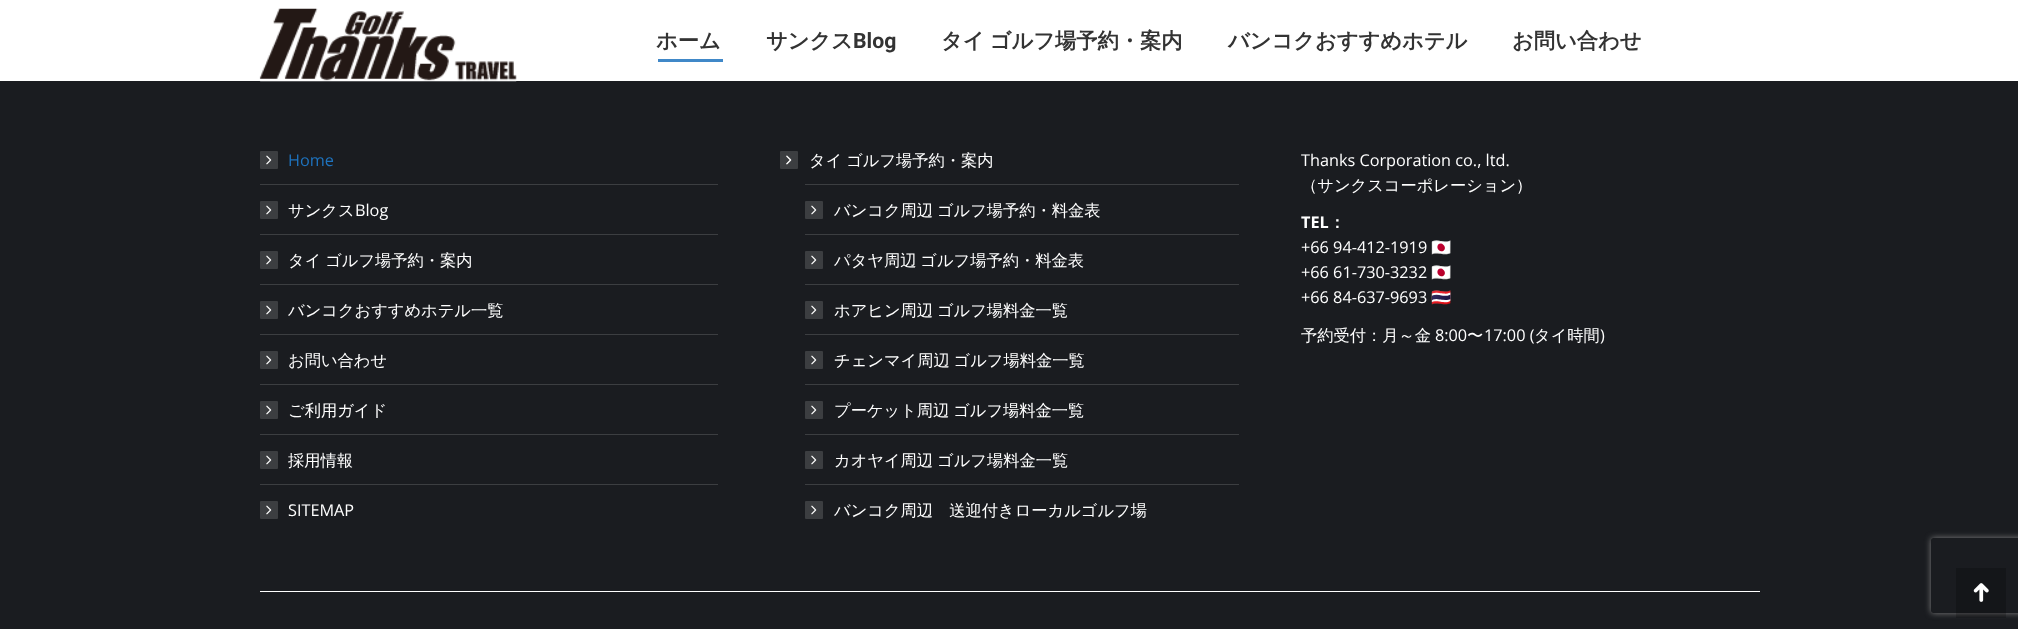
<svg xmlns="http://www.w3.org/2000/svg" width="2018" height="629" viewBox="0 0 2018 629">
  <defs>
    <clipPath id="clip1"><path d="M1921 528H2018V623H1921ZM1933.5 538H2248.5C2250 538 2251 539 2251 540.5V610.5C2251 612 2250 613 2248.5 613H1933.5C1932 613 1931 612 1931 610.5V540.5C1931 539 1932 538 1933.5 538Z" clip-rule="evenodd"/></clipPath>
  </defs>
  <rect width="100%" height="100%" fill="rgb(26,28,32)"/>
  <rect x="0" y="0" width="2018" height="81" fill="rgb(255,255,255)"/>
  <image x="259" y="8" width="258" height="74" href="pic1.png"/>
  <text x="656" y="48" font-family="WenQuanYi Zen Hei" font-size="21.25" font-weight="bold" fill="rgb(51,51,51)">ホーム</text>
  <rect x="658" y="59" width="65" height="3" fill="rgb(64,136,200)"/>
  <text x="766" y="48" font-family="WenQuanYi Zen Hei" font-size="21.25" font-weight="bold" fill="rgb(51,51,51)">サンクス</text>
  <text x="853" y="48" font-family="Roboto" font-size="21.25" font-weight="bold" fill="rgb(51,51,51)">Blog</text>
  <g font-family="WenQuanYi Zen Hei" font-size="21.25" font-weight="bold" fill="rgb(51,51,51)">
    <text x="941" y="48" word-spacing="-1">タイ ゴルフ場予約・案内</text>
    <text x="1228" y="48">バンコクおすすめホテル</text>
    <text x="1512" y="48">お問い合わせ</text>
  </g>
  <rect x="260" y="151" width="18" height="18" rx="1" fill="rgb(60,62,65)"/>
  <text x="288" y="166" font-family="Open Sans" font-size="16.25" fill="rgb(30,115,190)">Home</text>
  <image x="266" y="155" width="6" height="10" href="pic2.png"/>
  <rect x="260" y="184" width="458" height="1" fill="rgb(60,62,65)"/>
  <rect x="260" y="201" width="18" height="18" rx="1" fill="rgb(60,62,65)"/>
  <text x="288" y="216" font-family="WenQuanYi Zen Hei" font-size="16.25" font-weight="500" fill="rgb(255,255,255)">サンクス</text>
  <text x="355" y="216" font-family="Open Sans" font-size="16.25" fill="rgb(255,255,255)">Blog</text>
  <image x="266" y="205" width="6" height="10" href="pic2.png"/>
  <rect x="260" y="234" width="458" height="1" fill="rgb(60,62,65)"/>
  <rect x="260" y="251" width="18" height="18" rx="1" fill="rgb(60,62,65)"/>
  <text x="288" y="266" word-spacing="-1" font-family="WenQuanYi Zen Hei" font-size="16.25" font-weight="500" fill="rgb(255,255,255)">タイ ゴルフ場予約・案内</text>
  <image x="266" y="255" width="6" height="10" href="pic2.png"/>
  <rect x="260" y="284" width="458" height="1" fill="rgb(60,62,65)"/>
  <rect x="260" y="301" width="18" height="18" rx="1" fill="rgb(60,62,65)"/>
  <text x="288" y="316" font-family="WenQuanYi Zen Hei" font-size="16.25" font-weight="500" fill="rgb(255,255,255)">バンコクおすすめホテル一覧</text>
  <image x="266" y="305" width="6" height="10" href="pic2.png"/>
  <rect x="260" y="334" width="458" height="1" fill="rgb(60,62,65)"/>
  <rect x="260" y="351" width="18" height="18" rx="1" fill="rgb(60,62,65)"/>
  <text x="288" y="366" font-family="WenQuanYi Zen Hei" font-size="16.25" font-weight="500" fill="rgb(255,255,255)">お問い合わせ</text>
  <image x="266" y="355" width="6" height="10" href="pic2.png"/>
  <rect x="260" y="384" width="458" height="1" fill="rgb(60,62,65)"/>
  <rect x="260" y="401" width="18" height="18" rx="1" fill="rgb(60,62,65)"/>
  <text x="288" y="416" font-family="WenQuanYi Zen Hei" font-size="16.25" font-weight="500" fill="rgb(255,255,255)">ご利用ガイド</text>
  <image x="266" y="405" width="6" height="10" href="pic2.png"/>
  <rect x="260" y="434" width="458" height="1" fill="rgb(60,62,65)"/>
  <rect x="260" y="451" width="18" height="18" rx="1" fill="rgb(60,62,65)"/>
  <text x="288" y="466" font-family="WenQuanYi Zen Hei" font-size="16.25" font-weight="500" fill="rgb(255,255,255)">採用情報</text>
  <image x="266" y="455" width="6" height="10" href="pic2.png"/>
  <rect x="260" y="484" width="458" height="1" fill="rgb(60,62,65)"/>
  <rect x="260" y="501" width="18" height="18" rx="1" fill="rgb(60,62,65)"/>
  <text x="288" y="516" font-family="Open Sans" font-size="16.25" fill="rgb(255,255,255)">SITEMAP</text>
  <image x="266" y="505" width="6" height="10" href="pic2.png"/>
  <rect x="780" y="151" width="18" height="18" rx="1" fill="rgb(60,62,65)"/>
  <text x="809" y="166" word-spacing="-1" font-family="WenQuanYi Zen Hei" font-size="16.25" font-weight="500" fill="rgb(255,255,255)">タイ ゴルフ場予約・案内</text>
  <image x="786" y="155" width="6" height="10" href="pic3.png"/>
  <image x="786" y="155" width="6" height="10" href="pic4.png"/>
  <rect x="805" y="184" width="434" height="1" fill="rgb(60,62,65)"/>
  <rect x="805" y="201" width="18" height="18" rx="1" fill="rgb(60,62,65)"/>
  <text x="834" y="216" word-spacing="-1" font-family="WenQuanYi Zen Hei" font-size="16.25" font-weight="500" fill="rgb(255,255,255)">バンコク周辺 ゴルフ場予約・料金表</text>
  <image x="811" y="205" width="6" height="10" href="pic2.png"/>
  <rect x="805" y="234" width="434" height="1" fill="rgb(60,62,65)"/>
  <rect x="805" y="251" width="18" height="18" rx="1" fill="rgb(60,62,65)"/>
  <text x="834" y="266" word-spacing="-1" font-family="WenQuanYi Zen Hei" font-size="16.25" font-weight="500" fill="rgb(255,255,255)">パタヤ周辺 ゴルフ場予約・料金表</text>
  <image x="811" y="255" width="6" height="10" href="pic2.png"/>
  <rect x="805" y="284" width="434" height="1" fill="rgb(60,62,65)"/>
  <rect x="805" y="301" width="18" height="18" rx="1" fill="rgb(60,62,65)"/>
  <text x="834" y="316" word-spacing="-1" font-family="WenQuanYi Zen Hei" font-size="16.25" font-weight="500" fill="rgb(255,255,255)">ホアヒン周辺 ゴルフ場料金一覧</text>
  <image x="811" y="305" width="6" height="10" href="pic2.png"/>
  <rect x="805" y="334" width="434" height="1" fill="rgb(60,62,65)"/>
  <rect x="805" y="351" width="18" height="18" rx="1" fill="rgb(60,62,65)"/>
  <text x="834" y="366" word-spacing="-1" font-family="WenQuanYi Zen Hei" font-size="16.25" font-weight="500" fill="rgb(255,255,255)">チェンマイ周辺 ゴルフ場料金一覧</text>
  <image x="811" y="355" width="6" height="10" href="pic2.png"/>
  <rect x="805" y="384" width="434" height="1" fill="rgb(60,62,65)"/>
  <rect x="805" y="401" width="18" height="18" rx="1" fill="rgb(60,62,65)"/>
  <text x="834" y="416" word-spacing="-1" font-family="WenQuanYi Zen Hei" font-size="16.25" font-weight="500" fill="rgb(255,255,255)">プーケット周辺 ゴルフ場料金一覧</text>
  <image x="811" y="405" width="6" height="10" href="pic2.png"/>
  <rect x="805" y="434" width="434" height="1" fill="rgb(60,62,65)"/>
  <rect x="805" y="451" width="18" height="18" rx="1" fill="rgb(60,62,65)"/>
  <g font-family="WenQuanYi Zen Hei" font-size="16.25" font-weight="500" fill="rgb(255,255,255)">
    <text x="834" y="466">カオヤイ周辺</text>
    <text x="937" y="466">ゴルフ場料金一覧</text>
  </g>
  <image x="811" y="455" width="6" height="10" href="pic2.png"/>
  <rect x="805" y="484" width="434" height="1" fill="rgb(60,62,65)"/>
  <rect x="805" y="501" width="18" height="18" rx="1" fill="rgb(60,62,65)"/>
  <text x="834" y="516" font-family="WenQuanYi Zen Hei" font-size="16.25" font-weight="500" fill="rgb(255,255,255)">バンコク周辺　送迎付きローカルゴルフ場</text>
  <image x="811" y="505" width="6" height="10" href="pic2.png"/>
  <text x="1301" y="166" font-family="Open Sans" font-size="16.25" fill="rgb(255,255,255)">Thanks Corporation co., ltd.</text>
  <text x="1301" y="191" font-family="WenQuanYi Zen Hei" font-size="16.25" font-weight="500" fill="rgb(255,255,255)">（サンクスコーポレーション）</text>
  <text x="1301" y="228" font-family="Open Sans" font-size="16.25" font-weight="bold" fill="rgb(255,255,255)">TEL</text>
  <text x="1329" y="228" font-family="WenQuanYi Zen Hei" font-size="16.25" font-weight="bold" fill="rgb(255,255,255)">：</text>
  <text x="1301" y="253" font-family="Open Sans" font-size="16.25" fill="rgb(255,255,255)">+66 94-412-1919</text>
  <text x="1431" y="253" font-family="Noto Color Emoji" font-size="16.25" fill="rgb(255,255,255)">🇯🇵</text>
  <text x="1301" y="278" font-family="Open Sans" font-size="16.25" fill="rgb(255,255,255)">+66 61-730-3232</text>
  <text x="1431" y="278" font-family="Noto Color Emoji" font-size="16.25" fill="rgb(255,255,255)">🇯🇵</text>
  <text x="1301" y="303" font-family="Open Sans" font-size="16.25" fill="rgb(255,255,255)">+66 84-637-9693</text>
  <text x="1431" y="303" font-family="Noto Color Emoji" font-size="16.25" fill="rgb(255,255,255)">🇹🇭</text>
  <text x="1301" y="341" font-family="WenQuanYi Zen Hei" font-size="16.25" font-weight="500" fill="rgb(255,255,255)">予約受付：月～金</text>
  <text x="1435" y="341" font-family="Open Sans" font-size="16.25" fill="rgb(255,255,255)">8:00</text>
  <text x="1467" y="341" font-family="WenQuanYi Zen Hei" font-size="16.25" font-weight="500" fill="rgb(255,255,255)">〜</text>
  <text x="1484" y="341" font-family="Open Sans" font-size="16.25" fill="rgb(255,255,255)">17:00 (</text>
  <text x="1534" y="341" font-family="WenQuanYi Zen Hei" font-size="16.25" font-weight="500" fill="rgb(255,255,255)">タイ時間</text>
  <text x="1600" y="341" font-family="Open Sans" font-size="16.25" fill="rgb(255,255,255)">)</text>
  <rect x="260" y="591" width="1500" height="1" fill="rgb(255,255,255)"/>
  <g clip-path="url(#clip1)">
    <rect x="1931" y="538" width="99" height="75" rx="2.5" fill="rgb(128,128,128)" filter="blur(3px)"/>
  </g>
  <rect x="1956" y="568" width="50" height="50" fill="rgba(0,0,0,0.2)"/>
  <image x="1973" y="583" width="16" height="19" href="pic5.png"/>
</svg>
